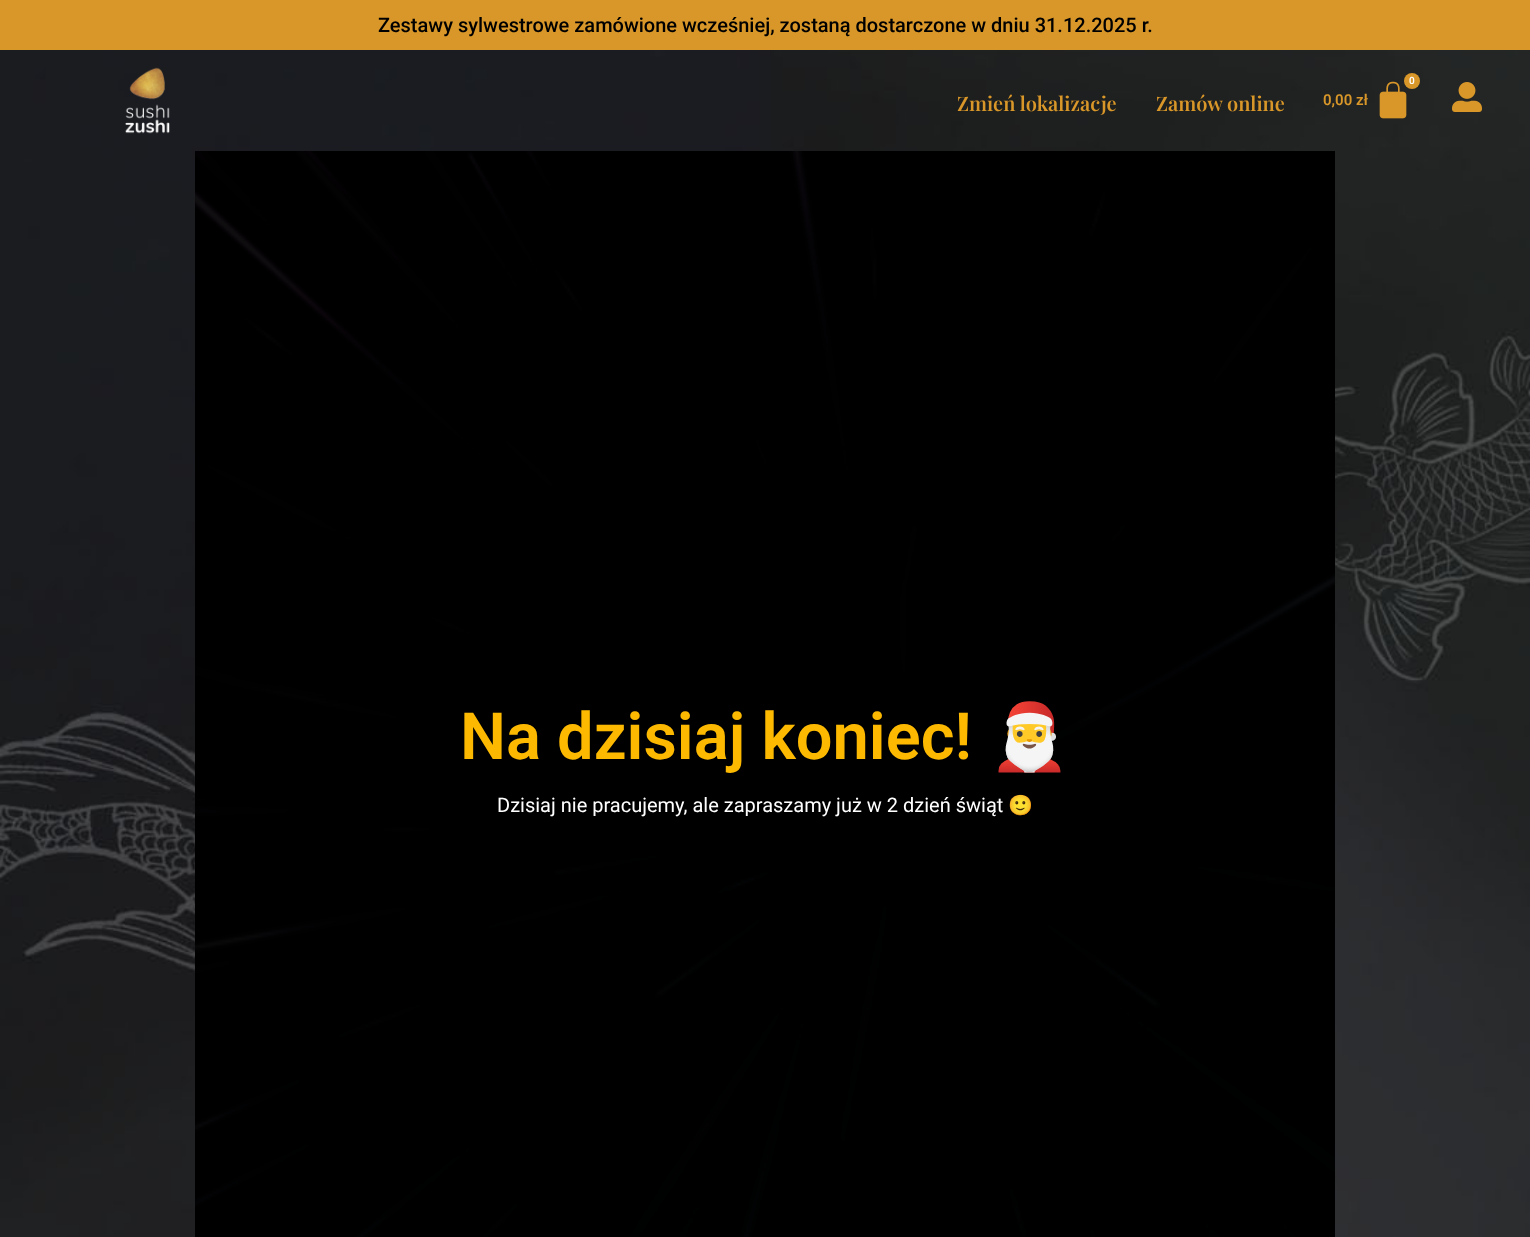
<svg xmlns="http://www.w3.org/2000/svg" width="1530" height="1237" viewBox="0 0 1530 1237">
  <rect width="100%" height="100%" fill="rgb(255,255,255)"/>
  <image x="0" y="50" width="1530" height="1187" href="pic1.png"/>
  <rect x="0" y="0" width="1530" height="50" fill="rgb(217,151,41)"/>
  <text x="378" y="32" font-family="Roboto" font-size="20" font-weight="500" fill="rgb(0,0,0)">Zestawy sylwestrowe zamówione wcześniej, zostaną dostarczone w dniu 31.12.2025 r.</text>
  <image x="125" y="67" width="45" height="67" href="pic2.png"/>
  <g font-family="Playfair Display" font-size="20" font-weight="600" fill="rgb(217,151,41)">
    <text x="957" y="111">Zmień lokalizacje</text>
    <text x="1156" y="111">Zamów online</text>
  </g>
  <image x="1379" y="81" width="28" height="38" href="pic3.png"/>
  <circle cx="1412" cy="81" r="8" fill="rgb(217,151,41)"/>
  <text x="1409" y="84" font-family="Roboto" font-size="10" font-weight="600" fill="rgb(255,255,255)">0</text>
  <text x="1323" y="105" font-family="Roboto" font-size="15" font-weight="600" fill="rgb(217,151,41)">0,00 zł</text>
  <image x="1452" y="82" width="30" height="30" href="pic4.png"/>
  <image x="195" y="151" width="1140" height="1086" href="pic5.png"/>
  <text x="460" y="759" font-family="Roboto" font-size="65" font-weight="600" fill="rgb(252,185,0)">Na dzisiaj koniec!</text>
  <text x="989" y="759" font-family="Noto Color Emoji" font-size="65" font-weight="bold" fill="rgb(252,185,0)">🎅</text>
  <text x="497" y="812" font-family="Roboto" font-size="20" fill="rgb(255,255,255)">Dzisiaj nie pracujemy, ale zapraszamy już w 2 dzień świąt</text>
  <text x="1008" y="812" font-family="Noto Color Emoji" font-size="20" fill="rgb(255,255,255)">🙂</text>
</svg>
